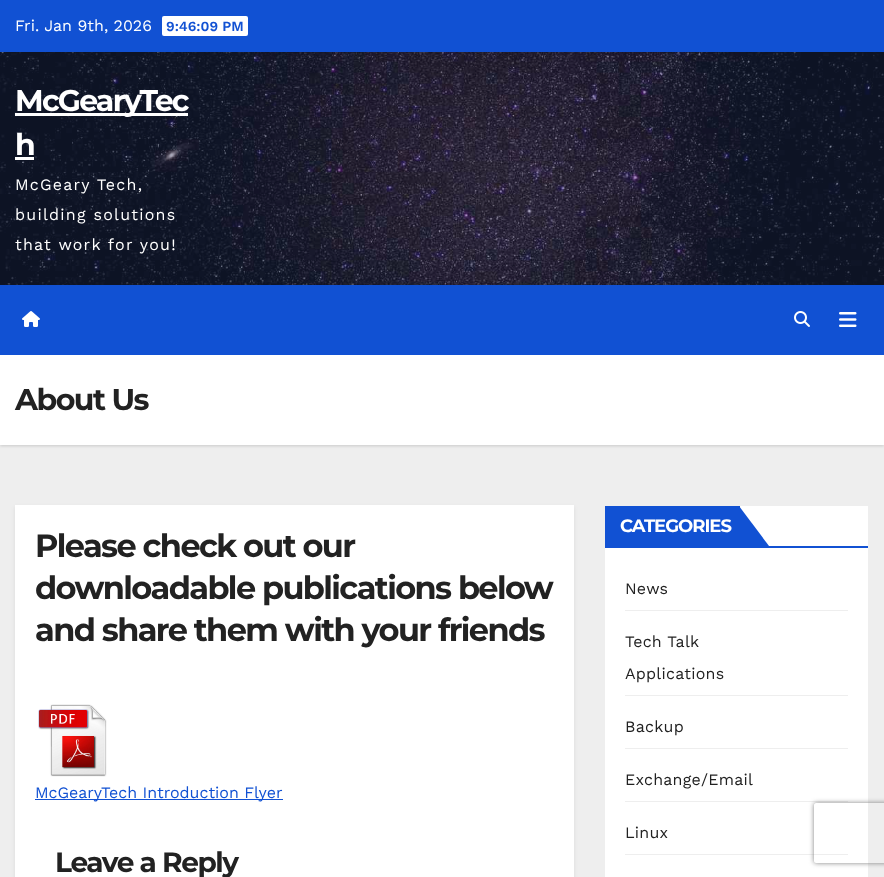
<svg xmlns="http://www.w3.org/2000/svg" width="884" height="877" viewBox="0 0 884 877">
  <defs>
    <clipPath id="clip1"><path d="M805 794H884V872H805ZM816 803H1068C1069 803 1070 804 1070 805V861C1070 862 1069 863 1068 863H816C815 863 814 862 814 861V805C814 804 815 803 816 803Z" clip-rule="evenodd"/></clipPath>
  </defs>
  <rect width="100%" height="100%" fill="rgb(238,238,238)"/>
  <rect x="0" y="0" width="884" height="52" fill="rgb(17,81,211)"/>
  <text x="15" y="31" font-family="Work Sans" font-size="16" fill="rgb(255,255,255)">Fri. Jan 9th, 2026</text>
  <rect x="162" y="16" width="86" height="20" rx="2" fill="rgb(255,255,255)"/>
  <text x="166" y="31" font-family="Work Sans" font-size="14" font-weight="600" fill="rgb(17,81,211)">9:46:09 PM</text>
  <image x="0" y="52" width="884" height="233" href="pic1.png"/>
  <rect x="15" y="113" width="173" height="3" fill="rgb(255,255,255)"/>
  <g font-family="Montserrat" font-size="30" font-weight="bold" letter-spacing="-1.75" fill="rgb(255,255,255)">
    <text>
      <tspan x="15" y="111">McGearyTec</tspan>
      <tspan x="15" y="155">h</tspan>
    </text>
  </g>
  <rect x="15" y="157" width="19" height="3" fill="rgb(255,255,255)"/>
  <g font-family="Work Sans" font-size="16" letter-spacing="1.25" fill="rgb(255,255,255)">
    <text>
      <tspan x="15" y="190">McGeary Tech,</tspan>
      <tspan x="15" y="220">building solutions</tspan>
      <tspan x="15" y="250">that work for you!</tspan>
    </text>
  </g>
  <rect x="0" y="356" width="884" height="90" fill="rgba(0,0,0,0.15)" filter="blur(1.5px)"/>
  <rect x="0" y="285" width="884" height="70" fill="rgb(17,81,211)"/>
  <image x="22" y="311" width="18" height="16" href="pic2.png"/>
  <image x="794" y="311" width="16" height="16" href="pic3.png"/>
  <image x="839" y="312" width="18" height="15" href="pic4.png"/>
  <rect x="0" y="355" width="884" height="90" fill="rgb(255,255,255)"/>
  <text x="15" y="410" font-family="Montserrat" font-size="30" font-weight="bold" letter-spacing="-1.5" fill="rgb(34,34,34)">About Us</text>
  <rect x="15" y="507" width="559" height="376" fill="rgba(0,0,0,0.08)" filter="blur(2px)"/>
  <rect x="15" y="505" width="559" height="372" fill="rgb(255,255,255)"/>
  <g font-family="Montserrat" font-size="32" font-weight="bold" letter-spacing="-1.6" fill="rgb(34,34,34)">
    <text>
      <tspan x="35" y="557">Please check out our</tspan>
      <tspan x="35" y="599">downloadable publications below</tspan>
      <tspan x="35" y="641">and share them with your friends</tspan>
    </text>
  </g>
  <image x="38" y="704" width="69" height="73" href="pic5.png"/>
  <rect x="35" y="799" width="248" height="1" fill="rgb(17,81,211)"/>
  <text x="35" y="798" font-family="Work Sans" font-size="16" fill="rgb(17,81,211)">McGearyTech Introduction Flyer</text>
  <text x="55" y="872" font-family="Montserrat" font-size="28" font-weight="bold" letter-spacing="-1.4" fill="rgb(34,34,34)">Leave a Reply</text>
  <rect x="605" y="506" width="263" height="371" fill="rgb(255,255,255)"/>
  <rect x="605" y="546" width="263" height="2" fill="rgb(17,81,211)"/>
  <rect x="605" y="506" width="135" height="40" fill="rgb(17,81,211)"/>
  <text x="620" y="532" font-family="Montserrat" font-size="18" font-weight="bold" letter-spacing="-1" fill="rgb(255,255,255)">CATEGORIES</text>
  <path d="M739 546V506L769 546Z" fill="rgb(17,81,211)"/>
  <rect x="625" y="610" width="223" height="1" fill="rgb(238,238,238)"/>
  <g font-family="Work Sans" font-size="16" letter-spacing="0.25" fill="rgb(34,34,34)">
    <text x="625" y="594">News</text>
    <text x="625" y="647">Tech Talk</text>
  </g>
  <rect x="625" y="695" width="223" height="1" fill="rgb(238,238,238)"/>
  <text x="625" y="679" font-family="Work Sans" font-size="16" letter-spacing="0.25" fill="rgb(34,34,34)">Applications</text>
  <rect x="625" y="748" width="223" height="1" fill="rgb(238,238,238)"/>
  <text x="625" y="732" font-family="Work Sans" font-size="16" letter-spacing="0.25" fill="rgb(34,34,34)">Backup</text>
  <rect x="625" y="801" width="223" height="1" fill="rgb(238,238,238)"/>
  <text x="625" y="785" font-family="Work Sans" font-size="16" letter-spacing="0.25" fill="rgb(34,34,34)">Exchange/Email</text>
  <rect x="625" y="854" width="223" height="1" fill="rgb(238,238,238)"/>
  <text x="625" y="838" font-family="Work Sans" font-size="16" letter-spacing="0.25" fill="rgb(34,34,34)">Linux</text>
  <g clip-path="url(#clip1)">
    <rect x="814" y="803" width="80" height="60" rx="2" fill="rgb(128,128,128)" filter="blur(2.5px)"/>
  </g>
</svg>
